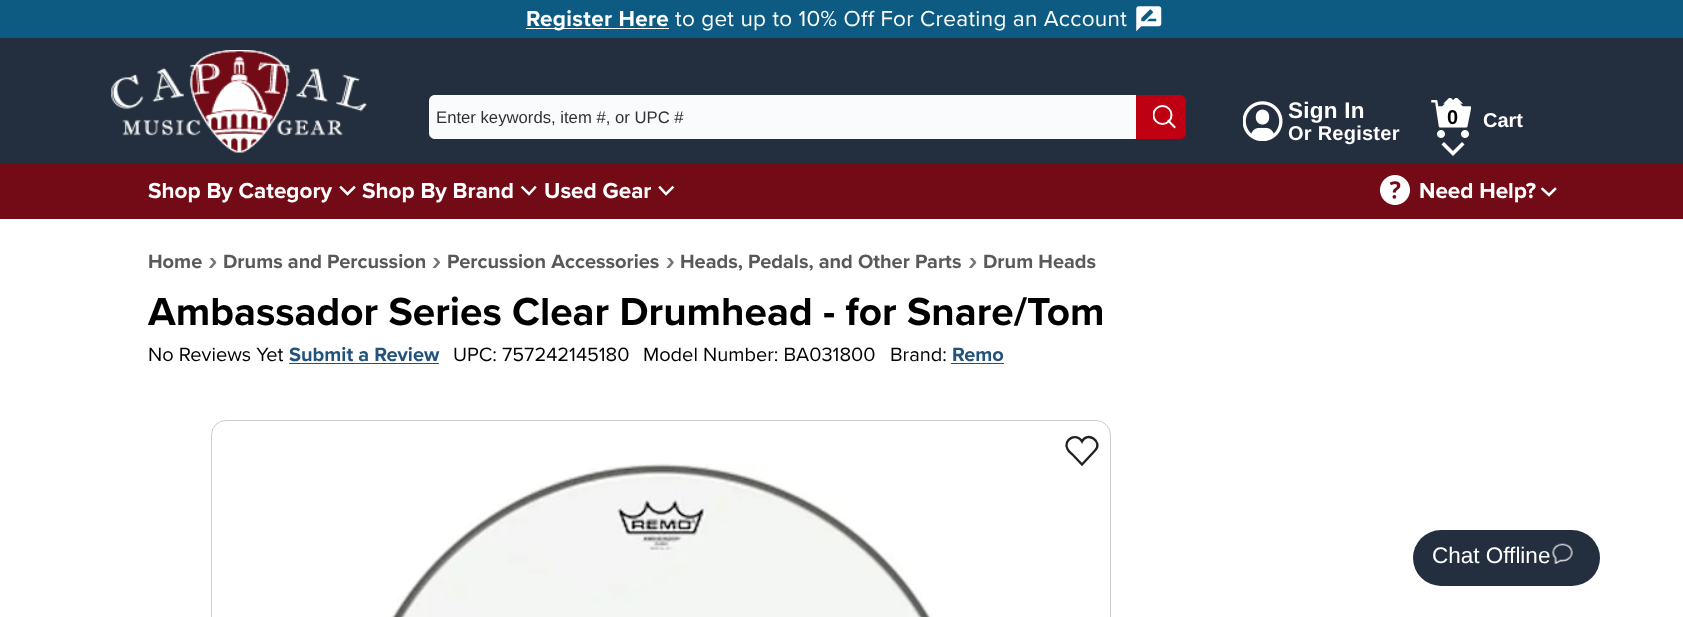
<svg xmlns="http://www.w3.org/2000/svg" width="1683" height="617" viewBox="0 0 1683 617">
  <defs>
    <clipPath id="clip1"><rect x="436" y="108" width="693" height="18"/></clipPath>
    <clipPath id="clip2"><rect x="1153" y="105" width="23" height="24"/></clipPath>
  </defs>
  <rect width="100%" height="100%" fill="rgb(255,255,255)"/>
  <rect x="0" y="0" width="1683" height="38" fill="rgb(13,91,130)"/>
  <rect x="526" y="28" width="143" height="1" fill="rgb(255,255,255)"/>
  <text x="526" y="26" font-family="Proxima Nova" font-size="22.5" font-weight="bold" letter-spacing="0.3" fill="rgb(255,255,255)">Register Here</text>
  <text x="675" y="26" font-family="Proxima Nova" font-size="22.5" letter-spacing="0.3" fill="rgb(255,255,255)">to get up to 10% Off For Creating an Account</text>
  <image x="1136" y="6" width="26" height="26" href="pic1.png"/>
  <rect x="0" y="38" width="1683" height="125" fill="rgb(35,47,62)"/>
  <image x="111" y="50" width="256" height="103" href="pic2.png"/>
  <path d="M435 95H1136V139H435C431.5 139 429 136.5 429 133V101C429 97.5 431.5 95 435 95Z" fill="rgb(250,251,252)"/>
  <g clip-path="url(#clip1)">
    <text x="436" y="123" font-family="Liberation Sans" font-size="16.7" fill="rgb(50,50,50)">Enter keywords, item #, or UPC #</text>
  </g>
  <path d="M1136 95H1180C1183.5 95 1186 97.5 1186 101V133C1186 136.5 1183.5 139 1180 139H1136Z" fill="rgb(191,0,18)"/>
  <path d="M1174.5 127L1168.5 121" fill="none" stroke="rgb(255,255,255)" stroke-width="2" stroke-linecap="square"/>
  <g clip-path="url(#clip2)">
    <circle cx="1162.5" cy="115" r="9" fill="none" stroke="rgb(255,255,255)" stroke-width="2"/>
  </g>
  <image x="1243" y="101" width="40" height="40" href="pic3.png"/>
  <text x="1288" y="118" font-family="Liberation Sans" font-size="22.5" font-weight="bold" letter-spacing="0.25" fill="rgb(255,255,255)">Sign In</text>
  <text x="1288" y="140" font-family="Liberation Sans" font-size="20" font-weight="bold" letter-spacing="0.25" fill="rgb(255,255,255)">Or Register</text>
  <image x="1431" y="98" width="40" height="40" href="pic4.png"/>
  <circle cx="1452.5" cy="113.5" r="12.5" fill="rgb(255,255,255)"/>
  <text x="1447" y="124" font-family="Liberation Sans" font-size="20" font-weight="bold" fill="rgb(0,0,0)">0</text>
  <text x="1483" y="127" font-family="Liberation Sans" font-size="20" font-weight="bold" fill="rgb(255,255,255)">Cart</text>
  <path d="M1462 144.5L1453 153.5L1444 144.5" fill="none" stroke="rgb(255,255,255)" stroke-width="3.6" stroke-linecap="square"/>
  <rect x="0" y="163" width="1683" height="56" fill="rgb(114,11,21)"/>
  <text x="148" y="198" font-family="Proxima Nova" font-size="22.5" font-weight="bold" fill="rgb(255,255,255)">Shop By Category</text>
  <path d="M354 187.5L347.5 194L341 187.5" fill="none" stroke="rgb(255,255,255)" stroke-width="2.5" stroke-linecap="square"/>
  <text x="362" y="198" font-family="Proxima Nova" font-size="22.5" font-weight="bold" fill="rgb(255,255,255)">Shop By Brand</text>
  <path d="M535 187.5L529 194L522.5 187.5" fill="none" stroke="rgb(255,255,255)" stroke-width="2.5" stroke-linecap="square"/>
  <text x="544" y="198" font-family="Proxima Nova" font-size="22.5" font-weight="bold" fill="rgb(255,255,255)">Used Gear</text>
  <path d="M672.5 187.5L666 194L660 187.5" fill="none" stroke="rgb(255,255,255)" stroke-width="2.5" stroke-linecap="square"/>
  <image x="1380" y="175" width="30" height="30" href="pic5.png"/>
  <text x="1419" y="198" font-family="Proxima Nova" font-size="22.5" font-weight="bold" fill="rgb(255,255,255)">Need Help?</text>
  <path d="M1555 189L1549 195L1542.5 189" fill="none" stroke="rgb(255,255,255)" stroke-width="2.5" stroke-linecap="square"/>
  <text x="148" y="268" font-family="Proxima Nova" font-size="20" font-weight="bold" fill="rgb(89,89,89)">Home</text>
  <image x="208" y="258" width="9" height="10" href="pic6.png"/>
  <text x="223" y="268" font-family="Proxima Nova" font-size="20" font-weight="bold" fill="rgb(89,89,89)">Drums and Percussion</text>
  <image x="432" y="258" width="8" height="10" href="pic7.png"/>
  <text x="447" y="268" font-family="Proxima Nova" font-size="20" font-weight="bold" fill="rgb(89,89,89)">Percussion Accessories</text>
  <image x="666" y="258" width="8" height="10" href="pic8.png"/>
  <text x="680" y="268" font-family="Proxima Nova" font-size="20" font-weight="bold" fill="rgb(89,89,89)">Heads, Pedals, and Other Parts</text>
  <image x="968" y="258" width="9" height="10" href="pic6.png"/>
  <text x="983" y="268" font-family="Proxima Nova" font-size="20" font-weight="bold" fill="rgb(89,89,89)">Drum Heads</text>
  <text x="148" y="325" font-family="Proxima Nova" font-size="40.5" font-weight="bold" fill="rgb(0,0,0)">Ambassador Series Clear Drumhead - for Snare/Tom</text>
  <text x="148" y="361" font-family="Proxima Nova" font-size="20" fill="rgb(0,0,0)">No Reviews Yet</text>
  <text x="289" y="361" font-family="Proxima Nova" font-size="20" font-weight="bold" fill="rgb(35,82,123)">Submit a Review</text>
  <rect x="289" y="363" width="150" height="1" fill="rgb(35,82,123)"/>
  <g font-family="Proxima Nova" font-size="20" fill="rgb(0,0,0)">
    <text x="453" y="361">UPC: 757242145180</text>
    <text x="643" y="361">Model Number: BA031800</text>
    <text x="890" y="361">Brand:</text>
  </g>
  <text x="952" y="361" font-family="Proxima Nova" font-size="20" font-weight="bold" fill="rgb(35,82,123)">Remo</text>
  <rect x="951" y="363" width="53" height="1" fill="rgb(35,82,123)"/>
  <rect x="211.5" y="420.5" width="899" height="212" rx="14.5" fill="none" stroke="rgb(204,204,204)"/>
  <path d="M1095 450.5L1082 464.5L1073 455C1071 453 1068.5 451.5 1067.5 449C1062.5 439.5 1077 432 1082 441.5C1087.5 430.5 1103.5 442 1095 450.5Z" fill="none" stroke="rgb(33,33,33)" stroke-width="2.3" stroke-linecap="square"/>
  <image x="390" y="463" width="542" height="154" href="pic9.png"/>
  <rect x="1413" y="530" width="187" height="56" rx="28" fill="rgb(35,47,62)"/>
  <text x="1432" y="563" font-family="Liberation Sans" font-size="22.5" fill="rgb(255,255,255)">Chat Offline</text>
  <image x="1552" y="543" width="21" height="21" href="pic10.png"/>
</svg>
